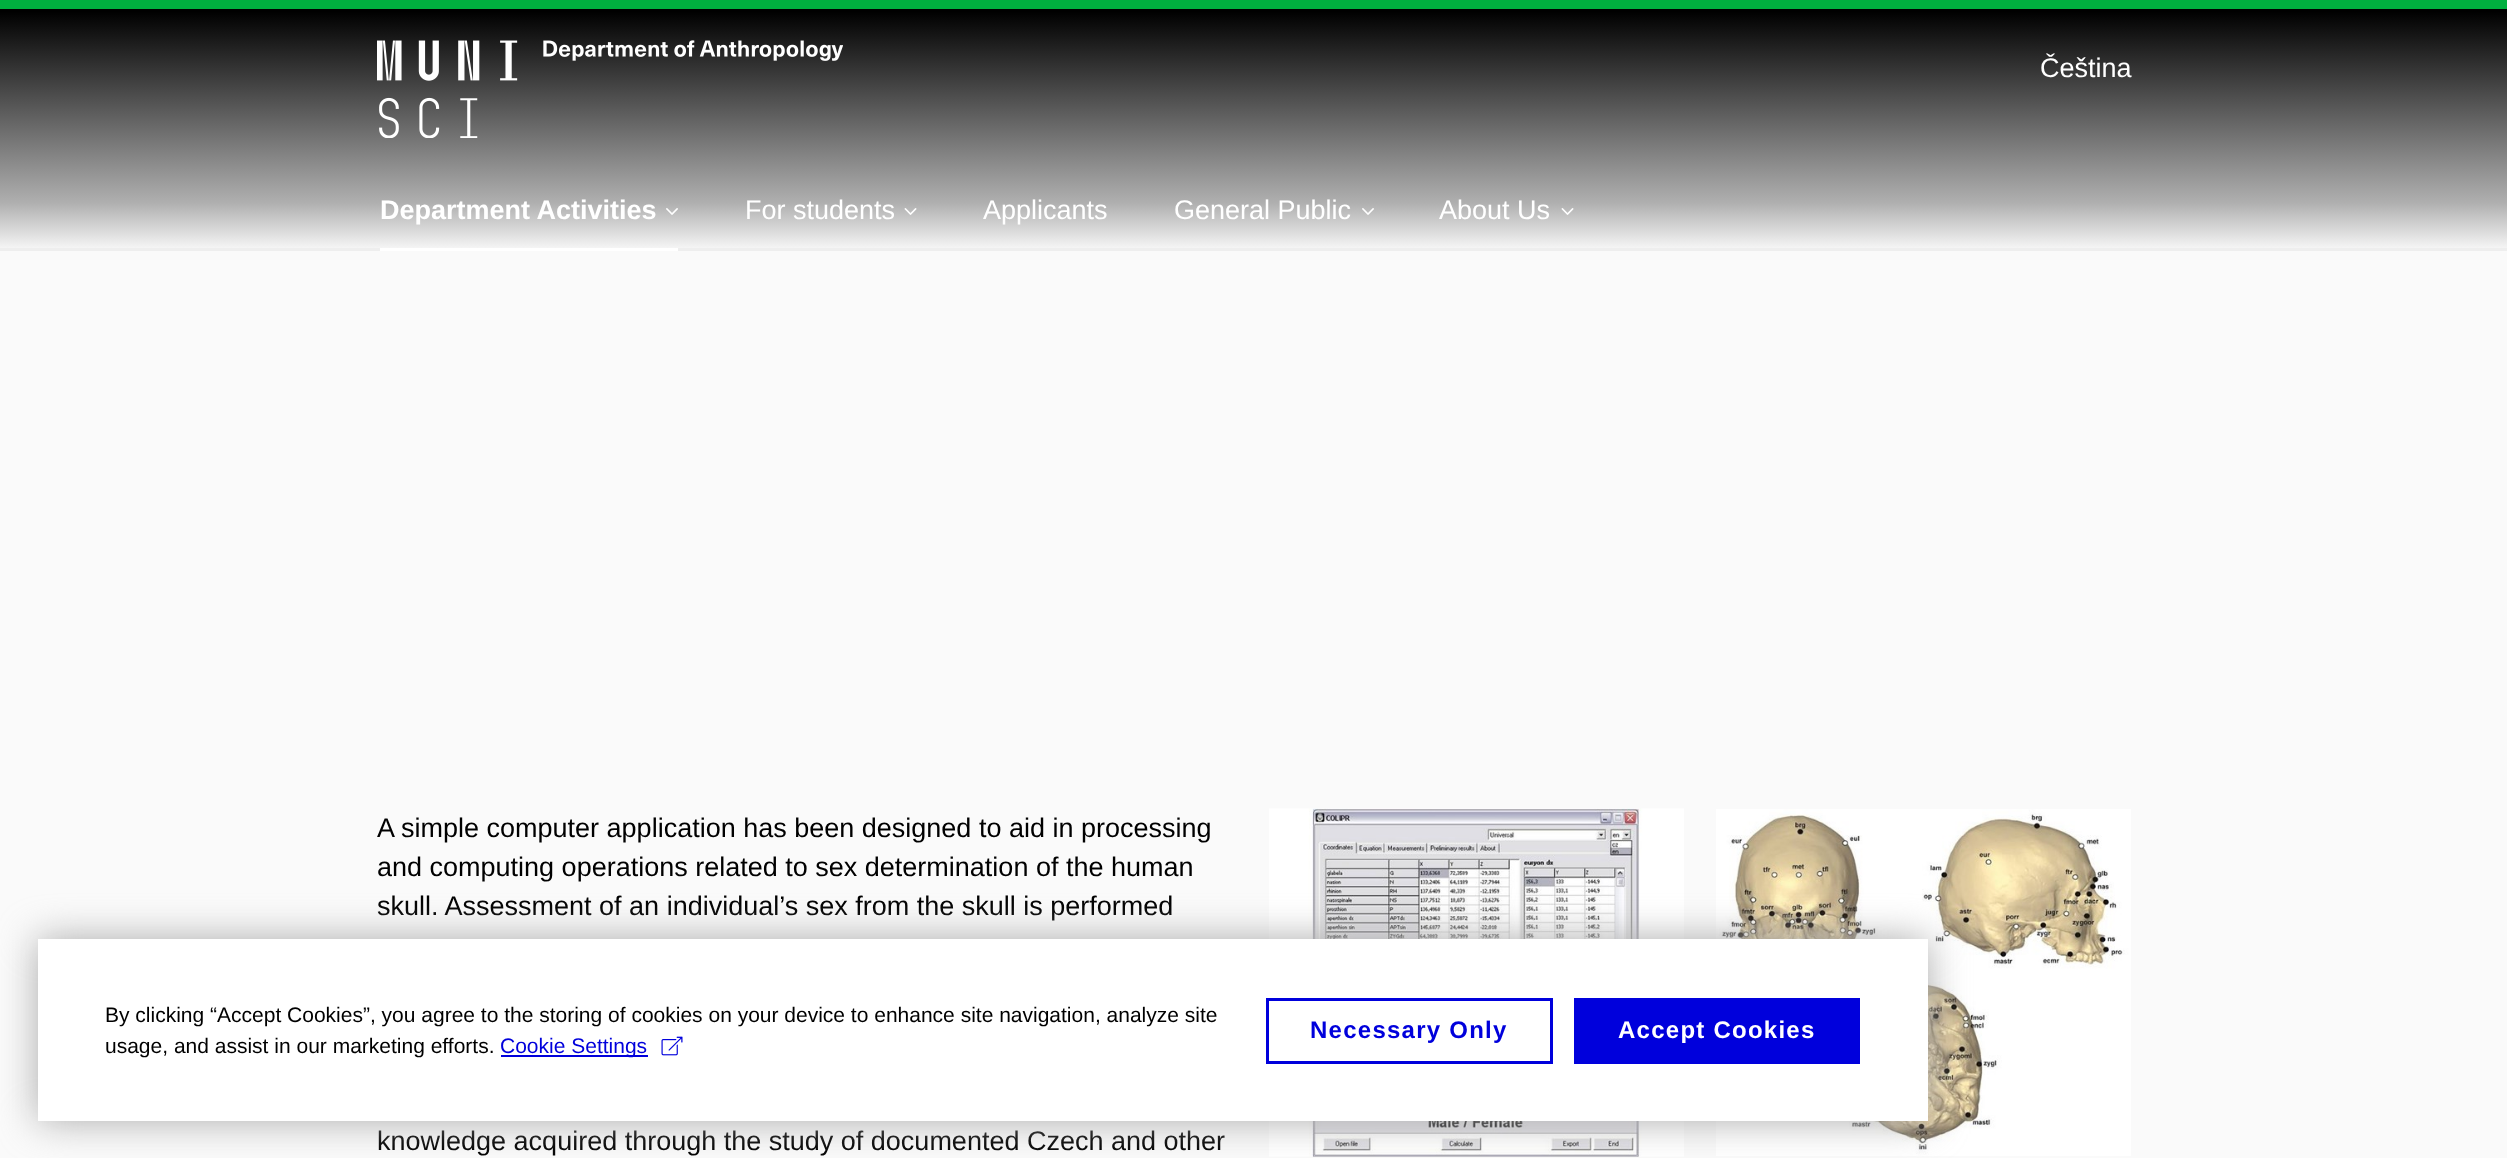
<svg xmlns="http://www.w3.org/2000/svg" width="2507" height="1158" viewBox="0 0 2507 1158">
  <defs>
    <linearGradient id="g1" gradientUnits="userSpaceOnUse" x1="1254" y1="9" x2="1254" y2="251"><stop offset="0.01" stop-color="rgb(0,0,0)"/><stop offset="0.8" stop-color="rgb(175,175,175)"/><stop offset="1" stop-color="rgb(249,249,249)"/></linearGradient>
  </defs>
  <rect width="100%" height="100%" fill="rgb(250,250,250)"/>
  <rect x="0" y="9" width="2507" height="239" fill="url(#g1)"/>
  <rect x="0" y="0" width="2507" height="9" fill="rgb(0,175,63)"/>
  <rect x="0" y="248" width="2507" height="3" fill="rgb(238,238,238)"/>
  <image x="377" y="40" width="466" height="98" href="pic1.png"/>
  <text x="2040" y="77" font-family="Liberation Sans" font-size="27" fill="rgb(255,255,255)">Čeština</text>
  <text x="380" y="219" font-family="Liberation Sans" font-size="27" font-weight="bold" fill="rgb(255,255,255)">Department Activities</text>
  <rect x="380" y="248" width="298" height="3" fill="rgb(255,255,255)"/>
  <image x="666" y="208" width="12" height="7" href="pic2.png"/>
  <text x="745" y="219" font-family="Liberation Sans" font-size="27" fill="rgb(255,255,255)">For students</text>
  <image x="904" y="208" width="13" height="7" href="pic3.png"/>
  <g font-family="Liberation Sans" font-size="27" fill="rgb(255,255,255)">
    <text x="983" y="219">Applicants</text>
    <text x="1174" y="219">General Public</text>
  </g>
  <image x="1362" y="208" width="12" height="7" href="pic2.png"/>
  <text x="1439" y="219" font-family="Liberation Sans" font-size="27" fill="rgb(255,255,255)">About Us</text>
  <image x="1561" y="208" width="13" height="7" href="pic3.png"/>
  <g font-family="Liberation Sans" font-size="27" fill="rgb(0,0,0)">
    <text>
      <tspan x="377" y="837">A simple computer application has been designed to aid in processing</tspan>
      <tspan x="377" y="876">and computing operations related to sex determination of the human</tspan>
      <tspan x="377" y="915">skull. Assessment of an individual’s sex from the skull is performed</tspan>
    </text>
    <text x="377" y="1150">knowledge acquired through the study of documented Czech and other</text>
  </g>
  <image x="1269" y="808" width="415" height="349" href="pic4.png"/>
  <image x="1716" y="809" width="415" height="347" href="pic5.png"/>
  <rect x="38" y="939" width="1890" height="182" fill="rgb(170,170,170)" filter="blur(19px)"/>
  <rect x="38" y="939" width="1890" height="182" fill="rgb(255,255,255)"/>
  <g font-family="Liberation Sans" font-size="21" fill="rgb(0,0,0)">
    <text>
      <tspan x="105" y="1022">By clicking “Accept Cookies”, you agree to the storing of cookies on your device to enhance site navigation, analyze site</tspan>
      <tspan x="105" y="1053">usage, and assist in our marketing efforts.</tspan>
    </text>
  </g>
  <rect x="501" y="1055" width="147" height="2" fill="rgb(0,0,220)"/>
  <text x="500" y="1053" font-family="Liberation Sans" font-size="21" fill="rgb(0,0,220)">Cookie Settings</text>
  <image x="661" y="1036" width="22" height="20" href="pic6.png"/>
  <rect x="1267.5" y="999.5" width="284" height="63" fill="none" stroke="rgb(0,0,220)" stroke-width="3"/>
  <text x="1310" y="1038" font-family="Liberation Sans" font-size="24" font-weight="bold" letter-spacing="1.25" fill="rgb(0,0,220)">Necessary Only</text>
  <rect x="1574" y="998" width="286" height="66" fill="rgb(0,0,220)"/>
  <text x="1618" y="1038" font-family="Liberation Sans" font-size="24" font-weight="bold" letter-spacing="1.25" fill="rgb(255,255,255)">Accept Cookies</text>
</svg>
